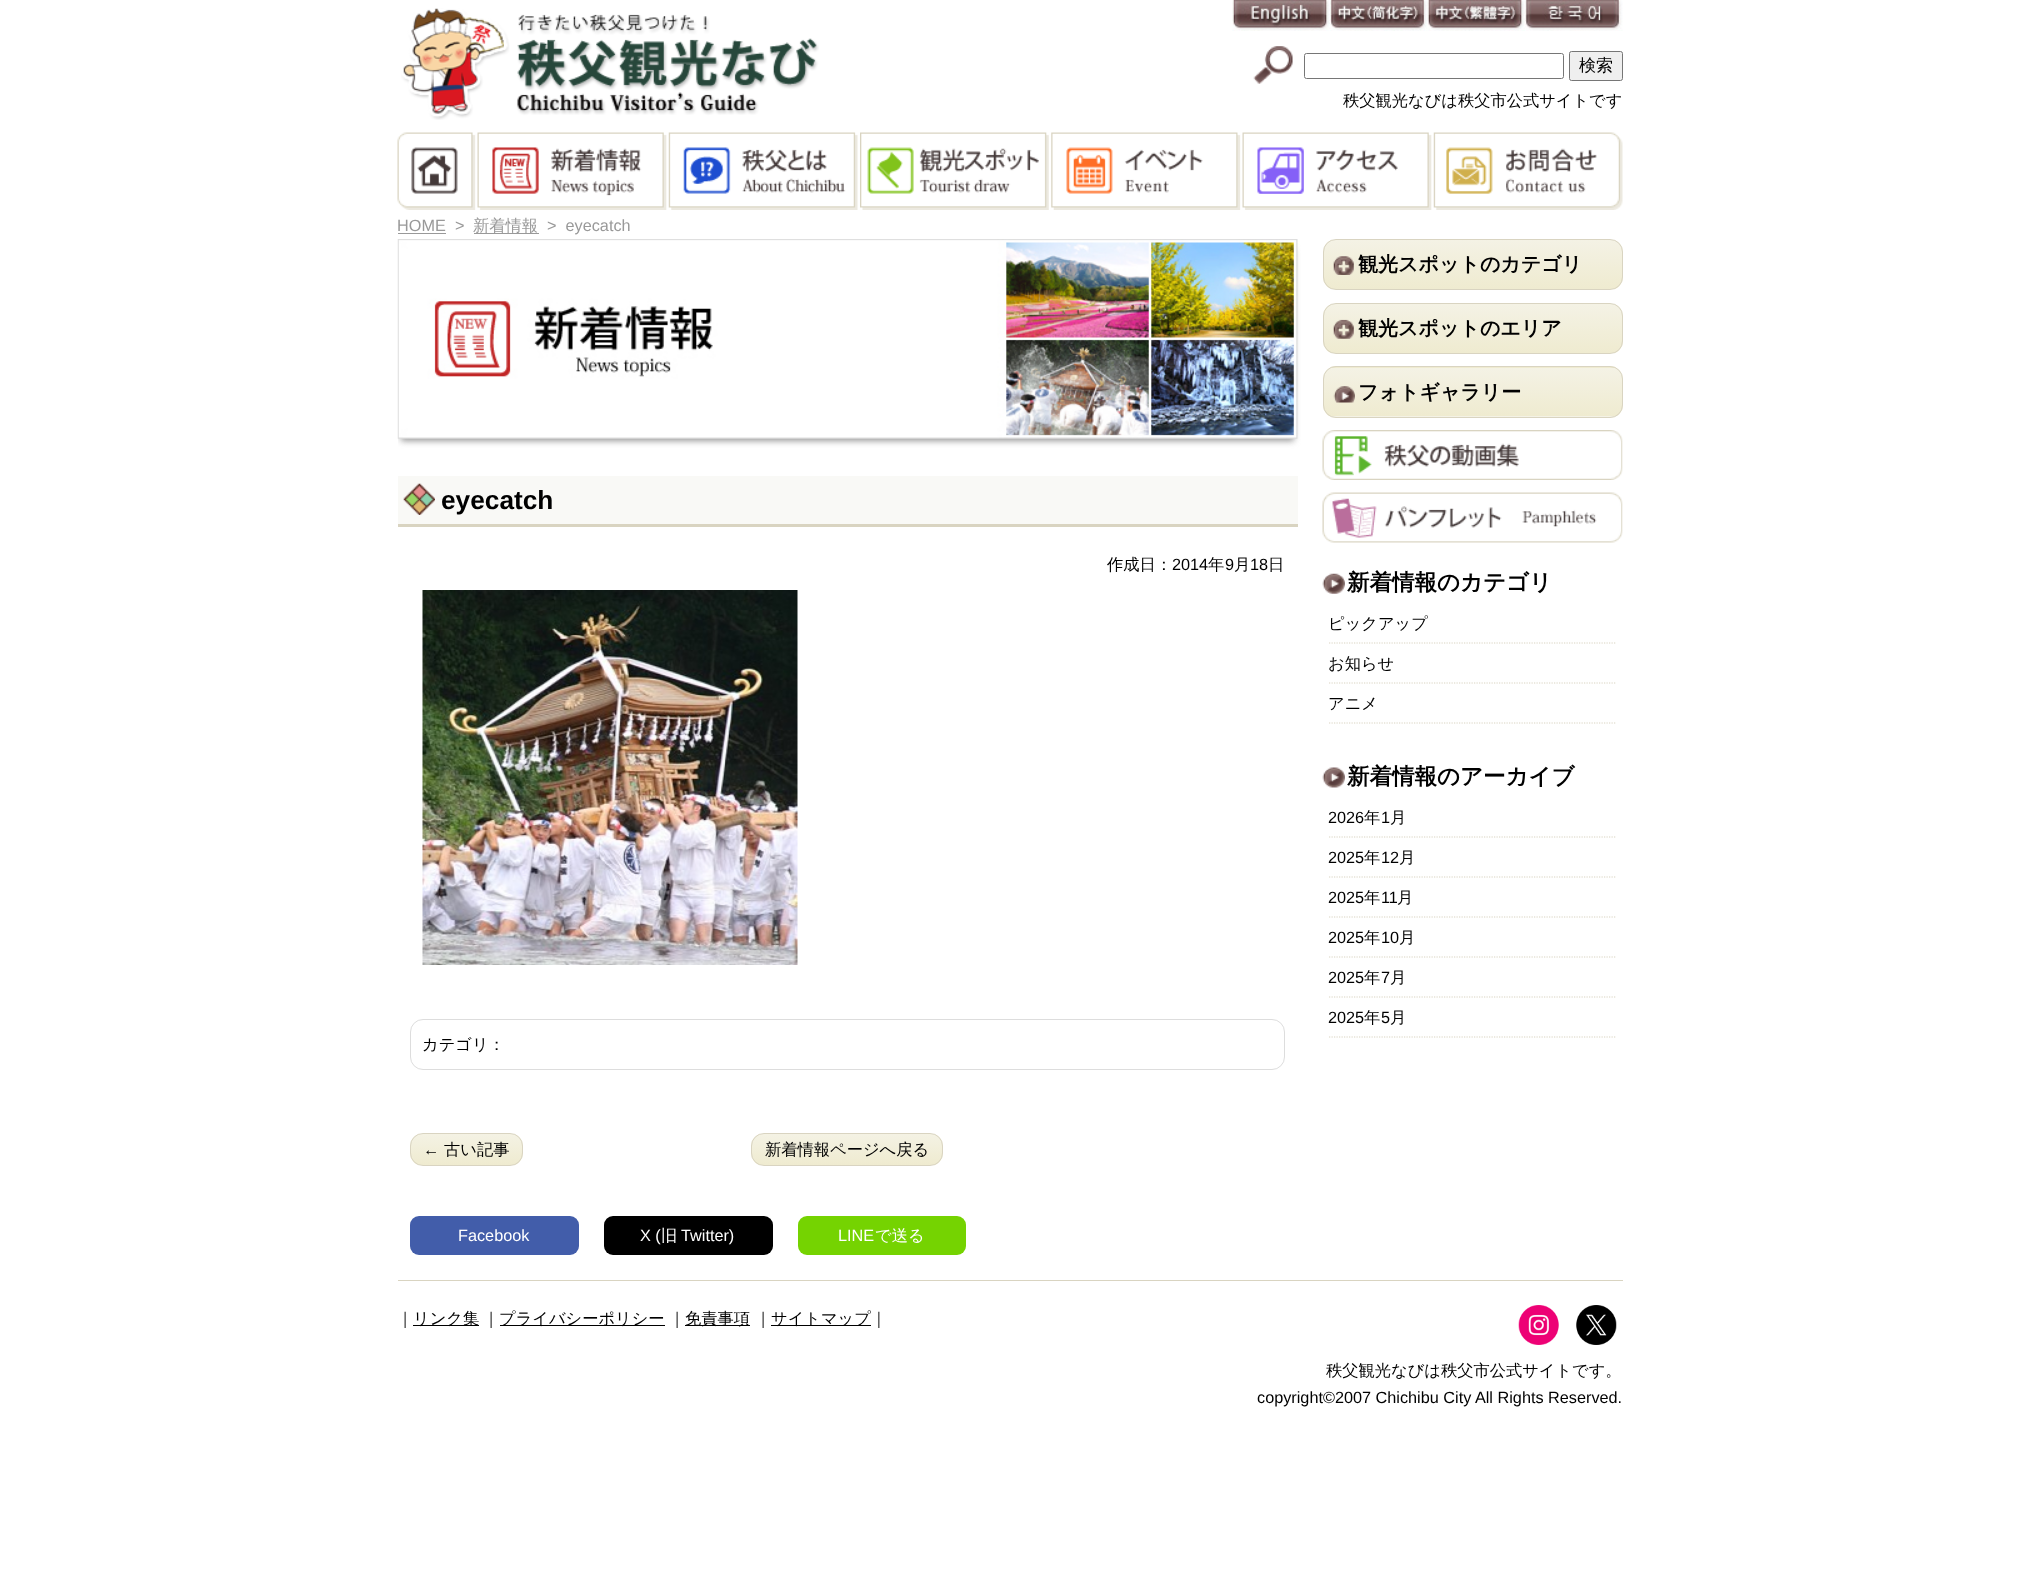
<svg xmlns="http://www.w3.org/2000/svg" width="2018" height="1594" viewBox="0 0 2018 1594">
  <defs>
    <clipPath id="clip1"><rect x="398" y="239" width="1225" height="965"/></clipPath>
    <clipPath id="clip2"><rect x="410" y="1133" width="113" height="33" rx="13"/></clipPath>
    <linearGradient id="g1" gradientUnits="userSpaceOnUse" x1="466" y1="1134" x2="466" y2="1165"><stop offset="0" stop-color="rgb(244,242,228)"/><stop offset="1" stop-color="rgb(239,235,208)"/></linearGradient>
    <clipPath id="clip3"><rect x="751" y="1133" width="192" height="33" rx="13"/></clipPath>
    <linearGradient id="g2" gradientUnits="userSpaceOnUse" x1="847" y1="1134" x2="847" y2="1165"><stop offset="0" stop-color="rgb(244,242,228)"/><stop offset="1" stop-color="rgb(239,235,208)"/></linearGradient>
    <clipPath id="clip4"><rect x="1323" y="239" width="300" height="51" rx="13"/></clipPath>
    <linearGradient id="g3" gradientUnits="userSpaceOnUse" x1="1473" y1="240" x2="1473" y2="289"><stop offset="0" stop-color="rgb(244,242,229)"/><stop offset="1" stop-color="rgb(239,235,208)"/></linearGradient>
    <clipPath id="clip5"><rect x="1323" y="303" width="300" height="51" rx="13"/></clipPath>
    <linearGradient id="g4" gradientUnits="userSpaceOnUse" x1="1473" y1="304" x2="1473" y2="353"><stop offset="0" stop-color="rgb(244,242,229)"/><stop offset="1" stop-color="rgb(239,235,208)"/></linearGradient>
    <clipPath id="clip6"><rect x="1323" y="366" width="300" height="52" rx="13"/></clipPath>
    <linearGradient id="g5" gradientUnits="userSpaceOnUse" x1="1473" y1="319" x2="1473" y2="368"><stop offset="0" stop-color="rgb(244,242,229)"/><stop offset="1" stop-color="rgb(239,235,208)"/></linearGradient>
    <linearGradient id="g6" gradientUnits="userSpaceOnUse" x1="1473" y1="368" x2="1473" y2="416"><stop offset="0" stop-color="rgb(244,242,229)"/><stop offset="1" stop-color="rgb(239,235,208)"/></linearGradient>
    <linearGradient id="g7" gradientUnits="userSpaceOnUse" x1="1473" y1="416" x2="1473" y2="465"><stop offset="0" stop-color="rgb(244,242,229)"/><stop offset="1" stop-color="rgb(239,235,208)"/></linearGradient>
  </defs>
  <rect width="100%" height="100%" fill="rgb(255,255,255)"/>
  <image x="401" y="8" width="418" height="112" href="pic1.png"/>
  <image x="1232" y="0" width="98" height="31" href="pic2.png"/>
  <image x="1330" y="0" width="98" height="31" href="pic3.png"/>
  <image x="1427" y="0" width="98" height="31" href="pic4.png"/>
  <image x="1525" y="0" width="98" height="31" href="pic5.png"/>
  <image x="1253" y="46" width="40" height="38" href="pic6.png"/>
  <rect x="1304.5" y="53.5" width="259" height="25" rx="2" fill="none" stroke="rgb(118,118,118)"/>
  <rect x="1569.5" y="51.5" width="53" height="29" rx="2" fill="rgb(239,239,239)" stroke="rgb(118,118,118)"/>
  <text x="1579" y="71" font-family="WenQuanYi Zen Hei" font-size="17" font-weight="500" fill="rgb(0,0,0)">検索</text>
  <image x="397" y="132" width="79" height="78" href="pic7.png"/>
  <image x="477" y="132" width="190" height="78" href="pic8.png"/>
  <image x="668" y="132" width="190" height="78" href="pic9.png"/>
  <image x="860" y="132" width="189" height="78" href="pic10.png"/>
  <image x="1051" y="132" width="190" height="78" href="pic11.png"/>
  <image x="1242" y="132" width="190" height="78" href="pic12.png"/>
  <image x="1433" y="132" width="190" height="78" href="pic13.png"/>
  <text x="1343" y="106" font-family="WenQuanYi Zen Hei" font-size="16.25" font-weight="500" fill="rgb(0,0,0)">秩父観光なびは秩父市公式サイトです</text>
  <text x="397" y="231" font-family="Liberation Sans" font-size="16.25" fill="rgb(153,153,153)">HOME</text>
  <rect x="398" y="233" width="48" height="1" fill="rgb(153,153,153)"/>
  <text x="455" y="231" font-family="Liberation Sans" font-size="16.25" fill="rgb(153,153,153)">&gt;</text>
  <rect x="474" y="233" width="65" height="1" fill="rgb(153,153,153)"/>
  <text x="473" y="231" font-family="WenQuanYi Zen Hei" font-size="16.25" font-weight="500" fill="rgb(153,153,153)">新着情報</text>
  <text x="547" y="231" font-family="Liberation Sans" font-size="16.25" fill="rgb(153,153,153)" xml:space="preserve">&gt;  eyecatch</text>
  <g clip-path="url(#clip1)">
    <rect x="401" y="249" width="893" height="192" fill="rgb(153,153,153)" filter="blur(3px)"/>
  </g>
  <image x="397" y="239" width="901" height="200" href="pic14.png"/>
  <rect x="398" y="476" width="900" height="48" fill="rgb(249,249,246)"/>
  <rect x="398" y="524" width="900" height="3" fill="rgb(217,212,193)"/>
  <image x="403" y="483" width="32" height="32" href="pic15.png"/>
  <text x="441" y="509" font-family="Liberation Sans" font-size="26.25" font-weight="bold" fill="rgb(0,0,0)">eyecatch</text>
  <text x="1107" y="570" font-family="WenQuanYi Zen Hei" font-size="16.25" font-weight="500" fill="rgb(0,0,0)">作成日：</text>
  <text x="1172" y="570" font-family="Liberation Sans" font-size="16.25" fill="rgb(0,0,0)">2014</text>
  <text x="1208" y="570" font-family="WenQuanYi Zen Hei" font-size="16.25" font-weight="500" fill="rgb(0,0,0)">年</text>
  <text x="1225" y="570" font-family="Liberation Sans" font-size="16.25" fill="rgb(0,0,0)">9</text>
  <text x="1234" y="570" font-family="WenQuanYi Zen Hei" font-size="16.25" font-weight="500" fill="rgb(0,0,0)">月</text>
  <text x="1250" y="570" font-family="Liberation Sans" font-size="16.25" fill="rgb(0,0,0)">18</text>
  <text x="1268" y="570" font-family="WenQuanYi Zen Hei" font-size="16.25" font-weight="500" fill="rgb(0,0,0)">日</text>
  <image x="422" y="590" width="376" height="375" href="pic16.png"/>
  <rect x="410.5" y="1019.5" width="874" height="50" rx="12.5" fill="none" stroke="rgb(221,221,221)"/>
  <text x="422" y="1050" font-family="WenQuanYi Zen Hei" font-size="16.25" font-weight="500" fill="rgb(0,0,0)">カテゴリ：</text>
  <g clip-path="url(#clip2)">
    <rect x="410" y="1134" width="113" height="31" fill="url(#g1)"/>
  </g>
  <rect x="410.5" y="1133.5" width="112" height="32" rx="12.5" fill="none" stroke="rgb(217,212,193)"/>
  <text x="423" y="1155" font-family="Liberation Sans" font-size="16.25" fill="rgb(0,0,0)">←</text>
  <text x="444" y="1155" font-family="WenQuanYi Zen Hei" font-size="16.25" font-weight="500" fill="rgb(0,0,0)">古い記事</text>
  <g clip-path="url(#clip3)">
    <rect x="751" y="1134" width="192" height="31" fill="url(#g2)"/>
  </g>
  <rect x="751.5" y="1133.5" width="191" height="32" rx="12.5" fill="none" stroke="rgb(217,212,193)"/>
  <text x="765" y="1155" font-family="WenQuanYi Zen Hei" font-size="16.25" font-weight="500" fill="rgb(0,0,0)">新着情報ページへ戻る</text>
  <g clip-path="url(#clip4)">
    <rect x="1323" y="240" width="300" height="49" fill="url(#g3)"/>
  </g>
  <rect x="1323.5" y="239.5" width="299" height="50" rx="12.5" fill="none" stroke="rgb(217,212,193)"/>
  <image x="1333" y="256" width="21" height="19" href="pic17.png"/>
  <text x="1358" y="271" font-family="WenQuanYi Zen Hei" font-size="20" font-weight="bold" fill="rgb(0,0,0)">観光スポットのカテゴリ</text>
  <g clip-path="url(#clip5)">
    <rect x="1323" y="304" width="300" height="49" fill="url(#g4)"/>
  </g>
  <rect x="1323.5" y="303.5" width="299" height="50" rx="12.5" fill="none" stroke="rgb(217,212,193)"/>
  <image x="1333" y="319" width="21" height="20" href="pic18.png"/>
  <text x="1358" y="335" font-family="WenQuanYi Zen Hei" font-size="20" font-weight="bold" fill="rgb(0,0,0)">観光スポットのエリア</text>
  <g clip-path="url(#clip6)">
    <rect x="1323" y="366" width="300" height="2" fill="url(#g5)"/>
    <rect x="1323" y="368" width="300" height="48" fill="url(#g6)"/>
    <rect x="1323" y="416" width="300" height="2" fill="url(#g7)"/>
  </g>
  <rect x="1323.5" y="366.5" width="299" height="51" rx="12.5" fill="none" stroke="rgb(217,212,193)"/>
  <image x="1333" y="386" width="22" height="17" href="pic19.png"/>
  <text x="1358" y="399" font-family="WenQuanYi Zen Hei" font-size="20" font-weight="bold" fill="rgb(0,0,0)">フォトギャラリー</text>
  <image x="1322" y="430" width="301" height="50" href="pic20.png"/>
  <image x="1322" y="492" width="301" height="51" href="pic21.png"/>
  <image x="1322" y="573" width="23" height="21" href="pic22.png"/>
  <text x="1347" y="590" font-family="WenQuanYi Zen Hei" font-size="22.5" font-weight="bold" fill="rgb(0,0,0)">新着情報のカテゴリ</text>
  <path d="M1329 643H1616" fill="none" stroke="rgb(217,212,193)" stroke-width="1.2" stroke-dasharray="1.25 1.25"/>
  <text x="1328" y="629" font-family="WenQuanYi Zen Hei" font-size="16.25" font-weight="500" fill="rgb(0,0,0)">ピックアップ</text>
  <path d="M1329 683H1616" fill="none" stroke="rgb(217,212,193)" stroke-width="1.2" stroke-dasharray="1.25 1.25"/>
  <text x="1328" y="669" font-family="WenQuanYi Zen Hei" font-size="16.25" font-weight="500" fill="rgb(0,0,0)">お知らせ</text>
  <path d="M1329 723H1616" fill="none" stroke="rgb(217,212,193)" stroke-width="1.2" stroke-dasharray="1.25 1.25"/>
  <text x="1328" y="709" font-family="WenQuanYi Zen Hei" font-size="16.25" font-weight="500" fill="rgb(0,0,0)">アニメ</text>
  <image x="1322" y="767" width="23" height="21" href="pic23.png"/>
  <text x="1347" y="784" font-family="WenQuanYi Zen Hei" font-size="22.5" font-weight="bold" fill="rgb(0,0,0)">新着情報のアーカイブ</text>
  <path d="M1329 837H1616" fill="none" stroke="rgb(217,212,193)" stroke-width="1.2" stroke-dasharray="1.25 1.25"/>
  <text x="1328" y="823" font-family="Liberation Sans" font-size="16.25" fill="rgb(0,0,0)">2026</text>
  <text x="1364" y="823" font-family="WenQuanYi Zen Hei" font-size="16.25" font-weight="500" fill="rgb(0,0,0)">年</text>
  <text x="1381" y="823" font-family="Liberation Sans" font-size="16.25" fill="rgb(0,0,0)">1</text>
  <text x="1390" y="823" font-family="WenQuanYi Zen Hei" font-size="16.25" font-weight="500" fill="rgb(0,0,0)">月</text>
  <path d="M1329 877H1616" fill="none" stroke="rgb(217,212,193)" stroke-width="1.2" stroke-dasharray="1.25 1.25"/>
  <text x="1328" y="863" font-family="Liberation Sans" font-size="16.25" fill="rgb(0,0,0)">2025</text>
  <text x="1364" y="863" font-family="WenQuanYi Zen Hei" font-size="16.25" font-weight="500" fill="rgb(0,0,0)">年</text>
  <text x="1381" y="863" font-family="Liberation Sans" font-size="16.25" fill="rgb(0,0,0)">12</text>
  <text x="1399" y="863" font-family="WenQuanYi Zen Hei" font-size="16.25" font-weight="500" fill="rgb(0,0,0)">月</text>
  <path d="M1329 917H1616" fill="none" stroke="rgb(217,212,193)" stroke-width="1.2" stroke-dasharray="1.25 1.25"/>
  <text x="1328" y="903" font-family="Liberation Sans" font-size="16.25" fill="rgb(0,0,0)">2025</text>
  <text x="1364" y="903" font-family="WenQuanYi Zen Hei" font-size="16.25" font-weight="500" fill="rgb(0,0,0)">年</text>
  <text x="1381" y="903" font-family="Liberation Sans" font-size="16.25" fill="rgb(0,0,0)">11</text>
  <text x="1397" y="903" font-family="WenQuanYi Zen Hei" font-size="16.25" font-weight="500" fill="rgb(0,0,0)">月</text>
  <path d="M1329 957H1616" fill="none" stroke="rgb(217,212,193)" stroke-width="1.2" stroke-dasharray="1.25 1.25"/>
  <text x="1328" y="943" font-family="Liberation Sans" font-size="16.25" fill="rgb(0,0,0)">2025</text>
  <text x="1364" y="943" font-family="WenQuanYi Zen Hei" font-size="16.25" font-weight="500" fill="rgb(0,0,0)">年</text>
  <text x="1381" y="943" font-family="Liberation Sans" font-size="16.25" fill="rgb(0,0,0)">10</text>
  <text x="1399" y="943" font-family="WenQuanYi Zen Hei" font-size="16.25" font-weight="500" fill="rgb(0,0,0)">月</text>
  <path d="M1329 997H1616" fill="none" stroke="rgb(217,212,193)" stroke-width="1.2" stroke-dasharray="1.25 1.25"/>
  <text x="1328" y="983" font-family="Liberation Sans" font-size="16.25" fill="rgb(0,0,0)">2025</text>
  <text x="1364" y="983" font-family="WenQuanYi Zen Hei" font-size="16.25" font-weight="500" fill="rgb(0,0,0)">年</text>
  <text x="1381" y="983" font-family="Liberation Sans" font-size="16.25" fill="rgb(0,0,0)">7</text>
  <text x="1390" y="983" font-family="WenQuanYi Zen Hei" font-size="16.25" font-weight="500" fill="rgb(0,0,0)">月</text>
  <path d="M1329 1037H1616" fill="none" stroke="rgb(217,212,193)" stroke-width="1.2" stroke-dasharray="1.25 1.25"/>
  <text x="1328" y="1023" font-family="Liberation Sans" font-size="16.25" fill="rgb(0,0,0)">2025</text>
  <text x="1364" y="1023" font-family="WenQuanYi Zen Hei" font-size="16.25" font-weight="500" fill="rgb(0,0,0)">年</text>
  <text x="1381" y="1023" font-family="Liberation Sans" font-size="16.25" fill="rgb(0,0,0)">5</text>
  <text x="1390" y="1023" font-family="WenQuanYi Zen Hei" font-size="16.25" font-weight="500" fill="rgb(0,0,0)">月</text>
  <rect x="410" y="1216" width="169" height="39" rx="9" fill="rgb(66,93,170)"/>
  <text x="458" y="1241" font-family="Liberation Sans" font-size="16.25" fill="rgb(255,255,255)">Facebook</text>
  <rect x="604" y="1216" width="169" height="39" rx="9" fill="rgb(0,0,0)"/>
  <text x="640" y="1241" font-family="Liberation Sans" font-size="16.25" fill="rgb(255,255,255)">X (</text>
  <text x="661" y="1241" font-family="WenQuanYi Zen Hei" font-size="16.25" font-weight="500" fill="rgb(255,255,255)">旧</text>
  <text x="681" y="1241" font-family="Liberation Sans" font-size="16.25" fill="rgb(255,255,255)">Twitter)</text>
  <rect x="798" y="1216" width="168" height="39" rx="9" fill="rgb(117,211,1)"/>
  <text x="838" y="1241" font-family="Liberation Sans" font-size="16.25" fill="rgb(255,255,255)">LINE</text>
  <text x="875" y="1241" font-family="WenQuanYi Zen Hei" font-size="16.25" font-weight="500" fill="rgb(255,255,255)">で送る</text>
  <rect x="398" y="1280" width="1225" height="1" fill="rgb(217,212,193)"/>
  <text x="397" y="1324" font-family="WenQuanYi Zen Hei" font-size="16.25" font-weight="500" fill="rgb(0,0,0)">｜</text>
  <rect x="413" y="1325" width="66" height="1" fill="rgb(0,0,0)"/>
  <g font-family="WenQuanYi Zen Hei" font-size="16.25" font-weight="500" fill="rgb(0,0,0)">
    <text x="413" y="1324">リンク集</text>
    <text x="483" y="1324">｜</text>
  </g>
  <rect x="500" y="1325" width="165" height="1" fill="rgb(0,0,0)"/>
  <g font-family="WenQuanYi Zen Hei" font-size="16.25" font-weight="500" fill="rgb(0,0,0)">
    <text x="499" y="1324">プライバシーポリシー</text>
    <text x="669" y="1324">｜</text>
  </g>
  <rect x="685" y="1325" width="65" height="1" fill="rgb(0,0,0)"/>
  <g font-family="WenQuanYi Zen Hei" font-size="16.25" font-weight="500" fill="rgb(0,0,0)">
    <text x="685" y="1324">免責事項</text>
    <text x="755" y="1324">｜</text>
  </g>
  <rect x="771" y="1325" width="100" height="1" fill="rgb(0,0,0)"/>
  <text x="771" y="1324" font-family="WenQuanYi Zen Hei" font-size="16.25" font-weight="500" fill="rgb(0,0,0)">サイトマップ｜</text>
  <image x="1518" y="1305" width="41" height="40" href="pic24.png"/>
  <image x="1576" y="1305" width="41" height="40" href="pic25.png"/>
  <text x="1326" y="1376" font-family="WenQuanYi Zen Hei" font-size="16.25" font-weight="500" fill="rgb(0,0,0)">秩父観光なびは秩父市公式サイトです。</text>
  <text x="1257" y="1403" font-family="Liberation Sans" font-size="16.25" fill="rgb(0,0,0)">copyright©2007 Chichibu City All Rights Reserved.</text>
</svg>
